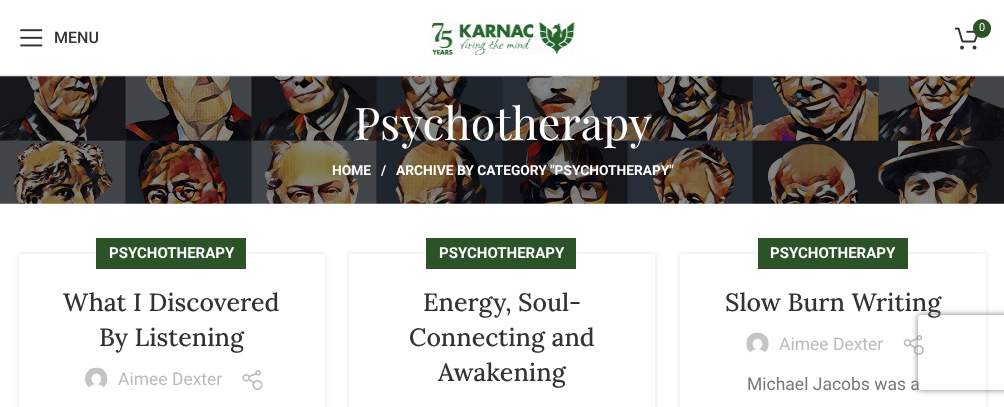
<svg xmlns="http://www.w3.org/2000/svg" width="1004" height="407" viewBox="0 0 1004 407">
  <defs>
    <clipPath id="clip1"><path d="M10 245H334V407H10ZM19 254H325V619H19Z" clip-rule="evenodd"/></clipPath>
    <clipPath id="clip2"><path d="M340 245H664V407H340ZM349 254H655V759H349Z" clip-rule="evenodd"/></clipPath>
    <clipPath id="clip3"><path d="M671 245H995V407H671ZM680 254H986V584H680Z" clip-rule="evenodd"/></clipPath>
    <clipPath id="clip4"><path d="M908 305H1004V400H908ZM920.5 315H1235.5C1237 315 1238 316 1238 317.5V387.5C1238 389 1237 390 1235.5 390H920.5C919 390 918 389 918 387.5V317.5C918 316 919 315 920.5 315Z" clip-rule="evenodd"/></clipPath>
  </defs>
  <rect width="100%" height="100%" fill="rgb(255,255,255)"/>
  <rect x="0" y="75" width="1004" height="1" fill="rgb(230,230,230)"/>
  <image x="431" y="22" width="144" height="33" href="pic1.png"/>
  <image x="955" y="27" width="23" height="23" href="pic2.png"/>
  <rect x="973" y="19" width="18" height="19" rx="9" fill="rgb(44,83,40)"/>
  <text x="979" y="31" font-family="Roboto" font-size="11" fill="rgb(255,255,255)">0</text>
  <image x="20" y="29" width="23" height="18" href="pic3.png"/>
  <text x="54" y="43" font-family="Roboto" font-size="16" font-weight="500" fill="rgb(51,51,51)">MENU</text>
  <image x="0" y="76" width="1004" height="128" href="pic4.png"/>
  <text x="354" y="140" font-family="Playfair Display" font-size="45" fill="rgb(255,255,255)">Psychotherapy</text>
  <g font-family="Roboto" font-size="13.75" font-weight="bold" fill="rgb(255,255,255)">
    <text x="332" y="175">HOME</text>
    <text x="381" y="175">/</text>
    <text x="396" y="175">ARCHIVE BY CATEGORY "PSYCHOTHERAPY"</text>
  </g>
  <g clip-path="url(#clip1)">
    <rect x="19" y="254" width="306" height="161" fill="rgba(0,0,0,0.12)" filter="blur(2.5px)"/>
  </g>
  <rect x="96" y="238" width="150" height="31" fill="rgb(44,83,40)"/>
  <text x="109" y="258" font-family="Roboto" font-size="15" font-weight="bold" fill="rgb(255,255,255)">PSYCHOTHERAPY</text>
  <g font-family="Lora" font-size="25" font-weight="500" fill="rgb(51,51,51)">
    <text x="63" y="311">What I Discovered</text>
    <text x="99" y="346">By Listening</text>
  </g>
  <image x="85" y="367" width="23" height="21" href="pic5.png"/>
  <text x="118" y="385" font-family="Roboto" font-size="17.5" fill="rgb(187,187,187)">Aimee Dexter</text>
  <image x="242" y="370" width="21" height="20" href="pic6.png"/>
  <g clip-path="url(#clip2)">
    <rect x="349" y="254" width="306" height="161" fill="rgba(0,0,0,0.12)" filter="blur(2.5px)"/>
  </g>
  <rect x="426" y="238" width="150" height="31" fill="rgb(44,83,40)"/>
  <text x="439" y="258" font-family="Roboto" font-size="15" font-weight="bold" fill="rgb(255,255,255)">PSYCHOTHERAPY</text>
  <g font-family="Lora" font-size="25" font-weight="500" fill="rgb(51,51,51)">
    <text x="423" y="311">Energy, Soul-</text>
    <text x="409" y="346">Connecting and</text>
    <text x="438" y="381">Awakening</text>
  </g>
  <g clip-path="url(#clip3)">
    <rect x="680" y="254" width="306" height="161" fill="rgba(0,0,0,0.12)" filter="blur(2.5px)"/>
  </g>
  <rect x="758" y="238" width="150" height="31" fill="rgb(44,83,40)"/>
  <text x="770" y="258" font-family="Roboto" font-size="15" font-weight="bold" fill="rgb(255,255,255)">PSYCHOTHERAPY</text>
  <text x="725" y="311" font-family="Lora" font-size="25" font-weight="500" fill="rgb(51,51,51)">Slow Burn Writing</text>
  <image x="746" y="332" width="23" height="21" href="pic7.png"/>
  <text x="779" y="350" font-family="Roboto" font-size="17.5" fill="rgb(187,187,187)">Aimee Dexter</text>
  <image x="903" y="335" width="21" height="20" href="pic8.png"/>
  <text x="747" y="390" font-family="Roboto" font-size="17.5" fill="rgb(119,119,119)">Michael Jacobs was a</text>
  <g clip-path="url(#clip4)">
    <rect x="918" y="315" width="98" height="75" rx="2.5" fill="rgb(128,128,128)" filter="blur(3px)"/>
  </g>
</svg>
